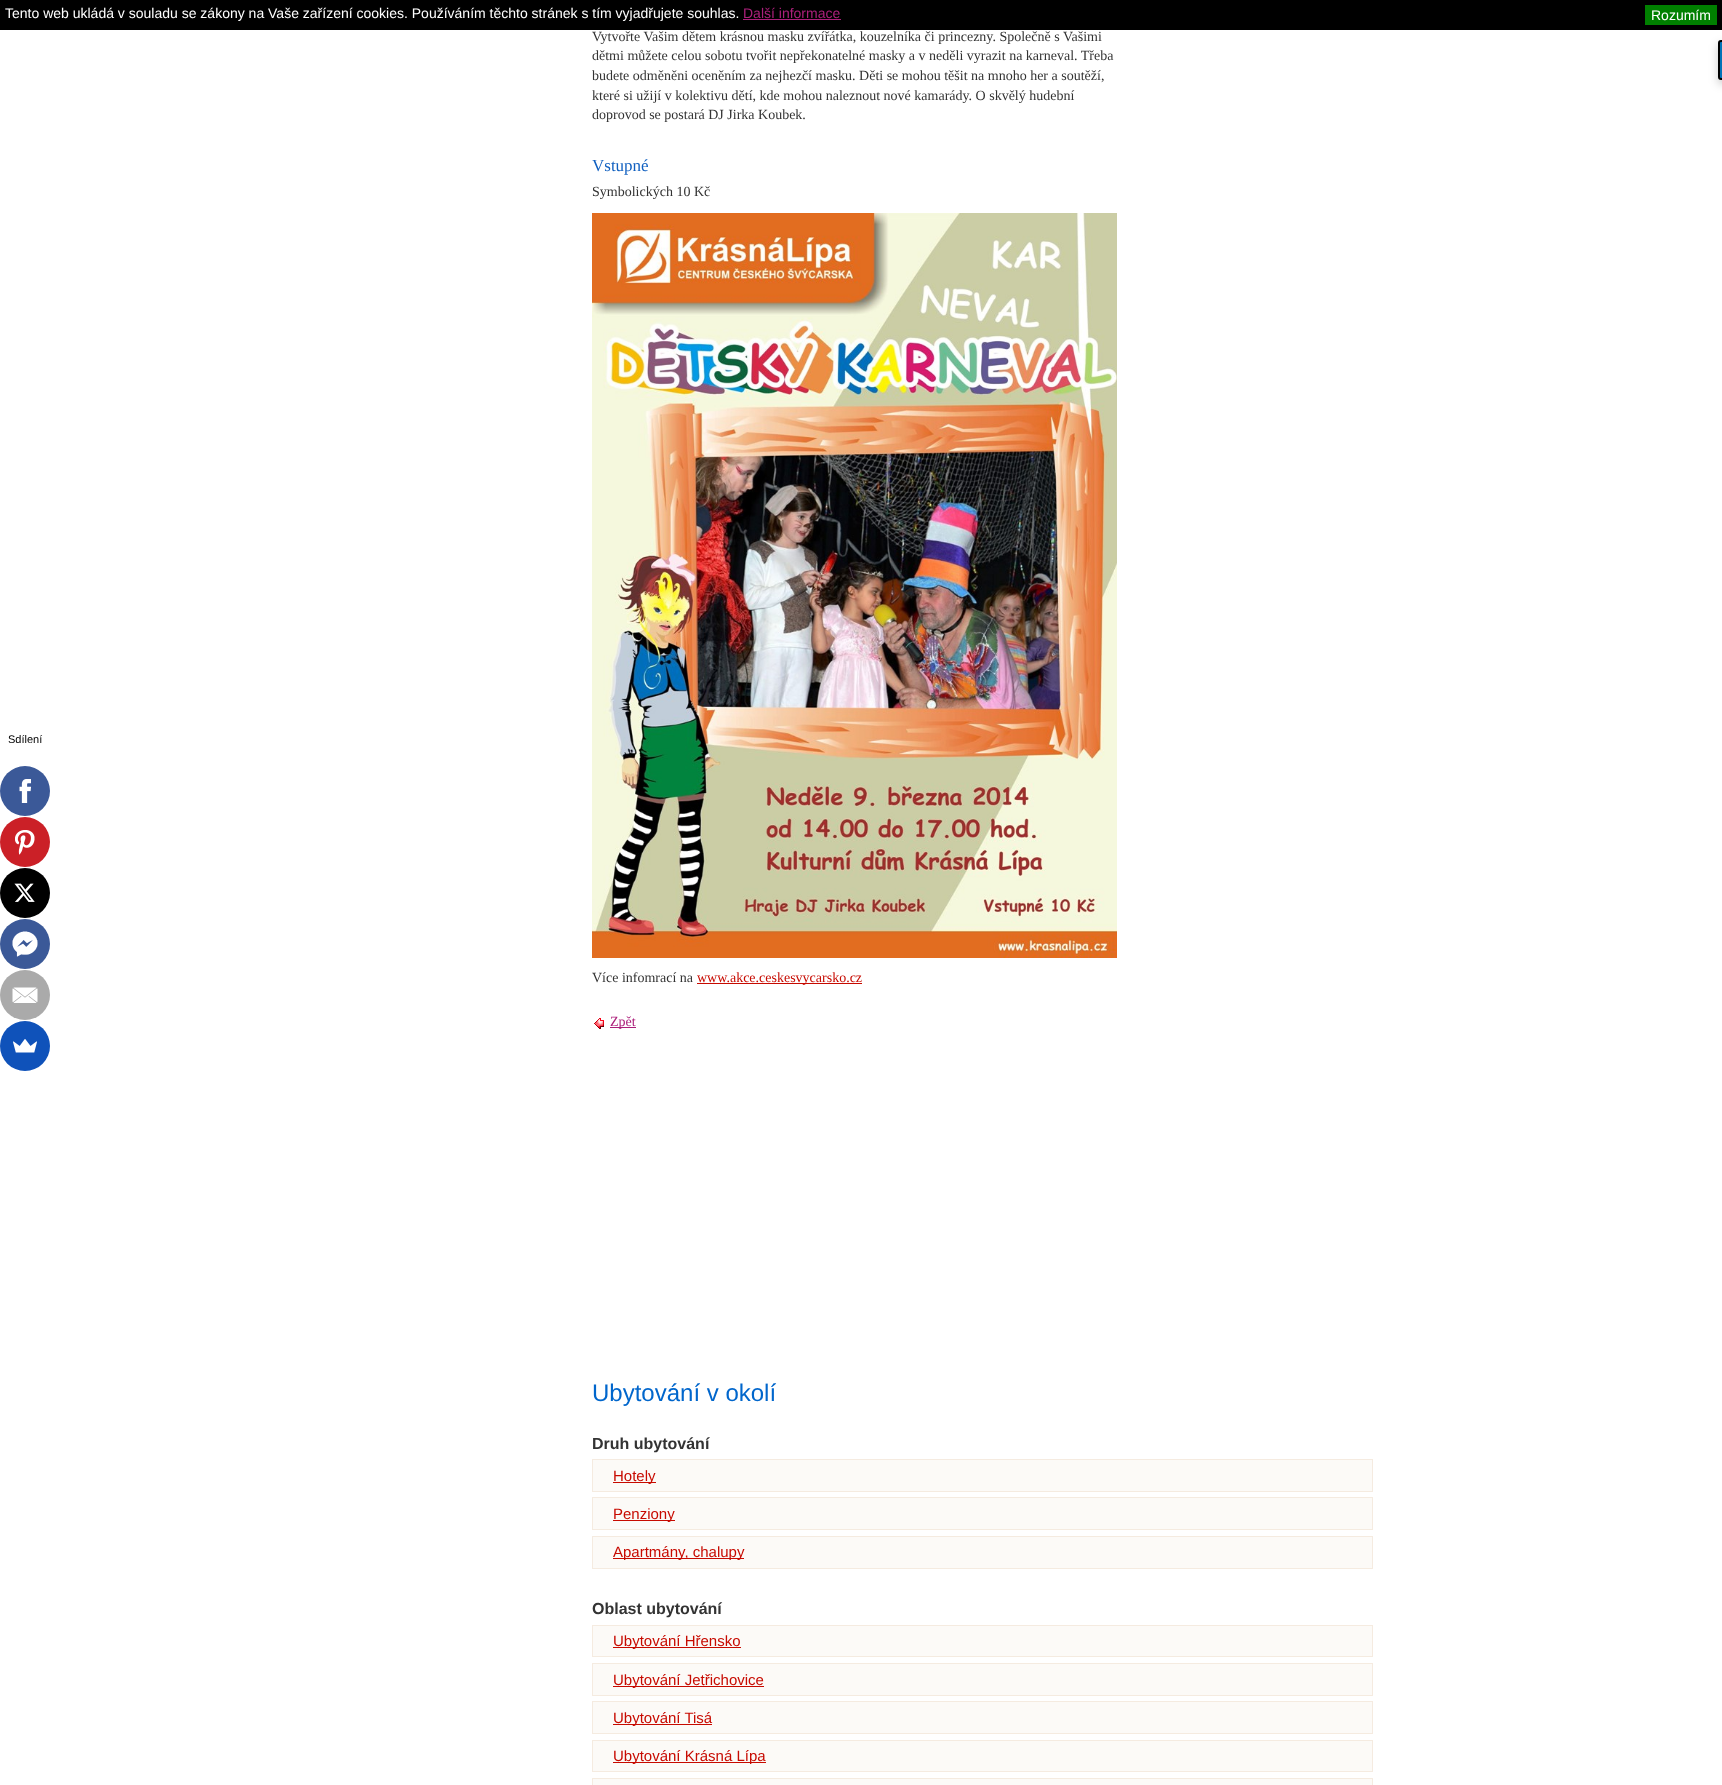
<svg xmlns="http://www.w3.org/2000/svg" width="1722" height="1785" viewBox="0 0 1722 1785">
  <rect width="100%" height="100%" fill="rgb(255,255,255)"/>
  <rect x="0" y="0" width="1722" height="30" fill="rgb(0,0,0)"/>
  <text x="5" y="18" font-family="Liberation Sans" font-size="14" fill="rgb(255,255,255)">Tento web ukládá v souladu se zákony na Vaše zařízení cookies. Používáním těchto stránek s tím vyjadřujete souhlas.</text>
  <text x="743" y="18" font-family="Liberation Sans" font-size="14" fill="rgb(172,32,123)">Další informace</text>
  <rect x="743" y="19" width="98" height="1" fill="rgb(172,32,123)"/>
  <rect x="1645" y="5" width="72" height="20" fill="rgb(0,128,0)"/>
  <text x="1651" y="20" font-family="Liberation Sans" font-size="14" fill="rgb(255,255,255)">Rozumím</text>
  <text x="8" y="743" font-family="Liberation Sans" font-size="11" fill="rgb(0,0,0)">Sdílení</text>
  <circle cx="25" cy="791" r="25" fill="rgb(59,89,152)"/>
  <image x="19" y="779" width="12" height="24" href="pic1.png"/>
  <circle cx="25" cy="842" r="25" fill="rgb(203,32,39)"/>
  <image x="15" y="830" width="20" height="25" href="pic2.png"/>
  <circle cx="25" cy="893" r="25" fill="rgb(0,0,0)"/>
  <image x="14" y="883" width="21" height="19" href="pic3.png"/>
  <circle cx="25" cy="944" r="25" fill="rgb(59,89,152)"/>
  <image x="12" y="931" width="26" height="26" href="pic4.png"/>
  <circle cx="25" cy="995" r="25" fill="rgb(170,170,170)"/>
  <image x="12" y="987" width="26" height="16" href="pic5.png"/>
  <circle cx="25" cy="1046" r="25" fill="rgb(15,82,186)"/>
  <image x="13" y="1039" width="24" height="14" href="pic6.png"/>
  <g font-family="Liberation Serif" font-size="14" fill="rgb(51,51,51)">
    <text>
      <tspan x="592" y="41">Vytvořte Vašim dětem krásnou masku zvířátka, kouzelníka či princezny. Společně s Vašimi</tspan>
      <tspan x="592" y="60">dětmi můžete celou sobotu tvořit nepřekonatelné masky a v neděli vyrazit na karneval. Třeba</tspan>
      <tspan x="592" y="80">budete odměněni oceněním za nejhezčí masku. Děti se mohou těšit na mnoho her a soutěží,</tspan>
      <tspan x="592" y="100">které si užijí v kolektivu dětí, kde mohou naleznout nové kamarády. O skvělý hudební</tspan>
      <tspan x="592" y="119">doprovod se postará DJ Jirka Koubek.</tspan>
    </text>
  </g>
  <text x="592" y="171" font-family="Liberation Serif" font-size="17" fill="rgb(17,96,192)">Vstupné</text>
  <text x="592" y="196" font-family="Liberation Serif" font-size="14" fill="rgb(51,51,51)">Symbolických 10 Kč</text>
  <image x="592" y="213" width="525" height="745" href="pic7.png"/>
  <text x="592" y="982" font-family="Liberation Serif" font-size="14" fill="rgb(51,51,51)">Více infomrací na</text>
  <rect x="697" y="983" width="165" height="1" fill="rgb(199,10,0)"/>
  <text x="697" y="982" font-family="Liberation Serif" font-size="14" fill="rgb(199,10,0)">www.akce.ceskesvycarsko.cz</text>
  <image x="594" y="1018" width="10" height="11" href="pic8.png"/>
  <rect x="610" y="1027" width="26" height="1" fill="rgb(172,32,123)"/>
  <text x="610" y="1026" font-family="Liberation Serif" font-size="14" fill="rgb(172,32,123)">Zpět</text>
  <text x="592" y="1401" font-family="Liberation Sans" font-size="24" fill="rgb(0,102,204)">Ubytování v okolí</text>
  <text x="592" y="1449" font-family="Liberation Sans" font-size="16" font-weight="bold" fill="rgb(51,51,51)">Druh ubytování</text>
  <rect x="592.5" y="1459.5" width="780" height="32" fill="rgb(252,250,247)" stroke="rgb(245,235,224)"/>
  <rect x="613" y="1482" width="43" height="1" fill="rgb(199,10,0)"/>
  <text x="613" y="1481" font-family="Liberation Sans" font-size="15" fill="rgb(199,10,0)">Hotely</text>
  <rect x="592.5" y="1497.5" width="780" height="32" fill="rgb(252,250,247)" stroke="rgb(245,235,224)"/>
  <rect x="613" y="1520" width="62" height="1" fill="rgb(199,10,0)"/>
  <text x="613" y="1519" font-family="Liberation Sans" font-size="15" fill="rgb(199,10,0)">Penziony</text>
  <rect x="592.5" y="1536.5" width="780" height="32" fill="rgb(252,250,247)" stroke="rgb(245,235,224)"/>
  <rect x="613" y="1558" width="131" height="1" fill="rgb(199,10,0)"/>
  <text x="613" y="1557" font-family="Liberation Sans" font-size="15" fill="rgb(199,10,0)">Apartmány, chalupy</text>
  <text x="592" y="1614" font-family="Liberation Sans" font-size="16" font-weight="bold" fill="rgb(51,51,51)">Oblast ubytování</text>
  <rect x="592.5" y="1625.5" width="780" height="31" fill="rgb(252,250,247)" stroke="rgb(245,235,224)"/>
  <rect x="613" y="1647" width="128" height="1" fill="rgb(199,10,0)"/>
  <text x="613" y="1646" font-family="Liberation Sans" font-size="15" fill="rgb(199,10,0)">Ubytování Hřensko</text>
  <rect x="592.5" y="1663.5" width="780" height="32" fill="rgb(252,250,247)" stroke="rgb(245,235,224)"/>
  <rect x="613" y="1686" width="151" height="1" fill="rgb(199,10,0)"/>
  <text x="613" y="1685" font-family="Liberation Sans" font-size="15" fill="rgb(199,10,0)">Ubytování Jetřichovice</text>
  <rect x="592.5" y="1701.5" width="780" height="32" fill="rgb(252,250,247)" stroke="rgb(245,235,224)"/>
  <rect x="613" y="1724" width="99" height="1" fill="rgb(199,10,0)"/>
  <text x="613" y="1723" font-family="Liberation Sans" font-size="15" fill="rgb(199,10,0)">Ubytování Tisá</text>
  <rect x="592.5" y="1740.5" width="780" height="31" fill="rgb(252,250,247)" stroke="rgb(245,235,224)"/>
  <rect x="613" y="1762" width="153" height="1" fill="rgb(199,10,0)"/>
  <text x="613" y="1761" font-family="Liberation Sans" font-size="15" fill="rgb(199,10,0)">Ubytování Krásná Lípa</text>
  <rect x="592.5" y="1778.5" width="780" height="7" fill="rgb(252,250,247)" stroke="rgb(245,235,224)"/>
  <rect x="1718" y="44" width="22" height="40" rx="3" fill="rgba(0,0,0,0.2)" filter="blur(5px)"/>
  <path d="M1721 41H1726V79H1721C1720 79 1719 78 1719 77V43C1719 42 1720 41 1721 41Z" fill="rgb(0,115,183)" stroke="rgb(0,0,0)" stroke-width="2"/>
</svg>
